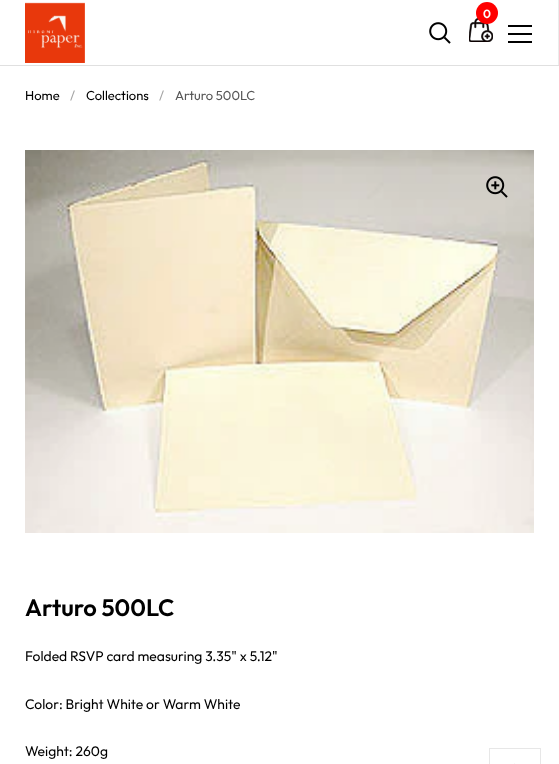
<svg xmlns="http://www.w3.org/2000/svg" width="559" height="764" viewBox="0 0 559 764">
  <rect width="100%" height="100%" fill="rgb(255,255,255)"/>
  <rect x="0" y="65" width="559" height="1" fill="rgb(224,224,224)"/>
  <rect x="558" y="0" width="1" height="65" fill="rgb(235,235,235)"/>
  <image x="25" y="2" width="60" height="61" href="pic1.png"/>
  <image x="469" y="18" width="24" height="24" href="pic2.png"/>
  <circle cx="487" cy="13" r="11" fill="rgb(255,0,0)"/>
  <text x="483" y="18" font-family="Outfit" font-size="12" font-weight="600" fill="rgb(255,255,255)">0</text>
  <image x="429" y="22" width="22" height="22" href="pic3.png"/>
  <rect x="508" y="25" width="24" height="2" fill="rgb(0,0,0)"/>
  <rect x="508" y="33" width="24" height="2" fill="rgb(0,0,0)"/>
  <rect x="508" y="41" width="24" height="2" fill="rgb(0,0,0)"/>
  <text x="25" y="100" font-family="Outfit" font-size="13" fill="rgb(0,0,0)">Home</text>
  <text x="70" y="100" font-family="Outfit" font-size="13" fill="rgb(163,163,163)">/</text>
  <text x="86" y="100" font-family="Outfit" font-size="13" fill="rgb(0,0,0)">Collections</text>
  <text x="159" y="100" font-family="Outfit" font-size="13" fill="rgb(163,163,163)">/</text>
  <text x="175" y="100" font-family="Outfit" font-size="13" fill="rgb(87,87,87)">Arturo 500LC</text>
  <image x="25" y="150" width="509" height="383" href="pic4.png"/>
  <image x="486" y="176" width="22" height="22" href="pic5.png"/>
  <text x="25" y="616" font-family="Outfit" font-size="23.75" font-weight="600" fill="rgb(0,0,0)">Arturo 500LC</text>
  <g font-family="Outfit" font-size="13.9" fill="rgb(0,0,0)">
    <text x="25" y="661">Folded RSVP card measuring 3.35" x 5.12"</text>
    <text x="25" y="709">Color: Bright White or Warm White</text>
    <text x="25" y="756">Weight: 260g</text>
  </g>
  <rect x="489.5" y="748.5" width="51" height="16" fill="none" stroke="rgb(231,231,231)"/>
  <rect x="514" y="763" width="1" height="1" fill="rgb(247,247,247)"/>
</svg>
